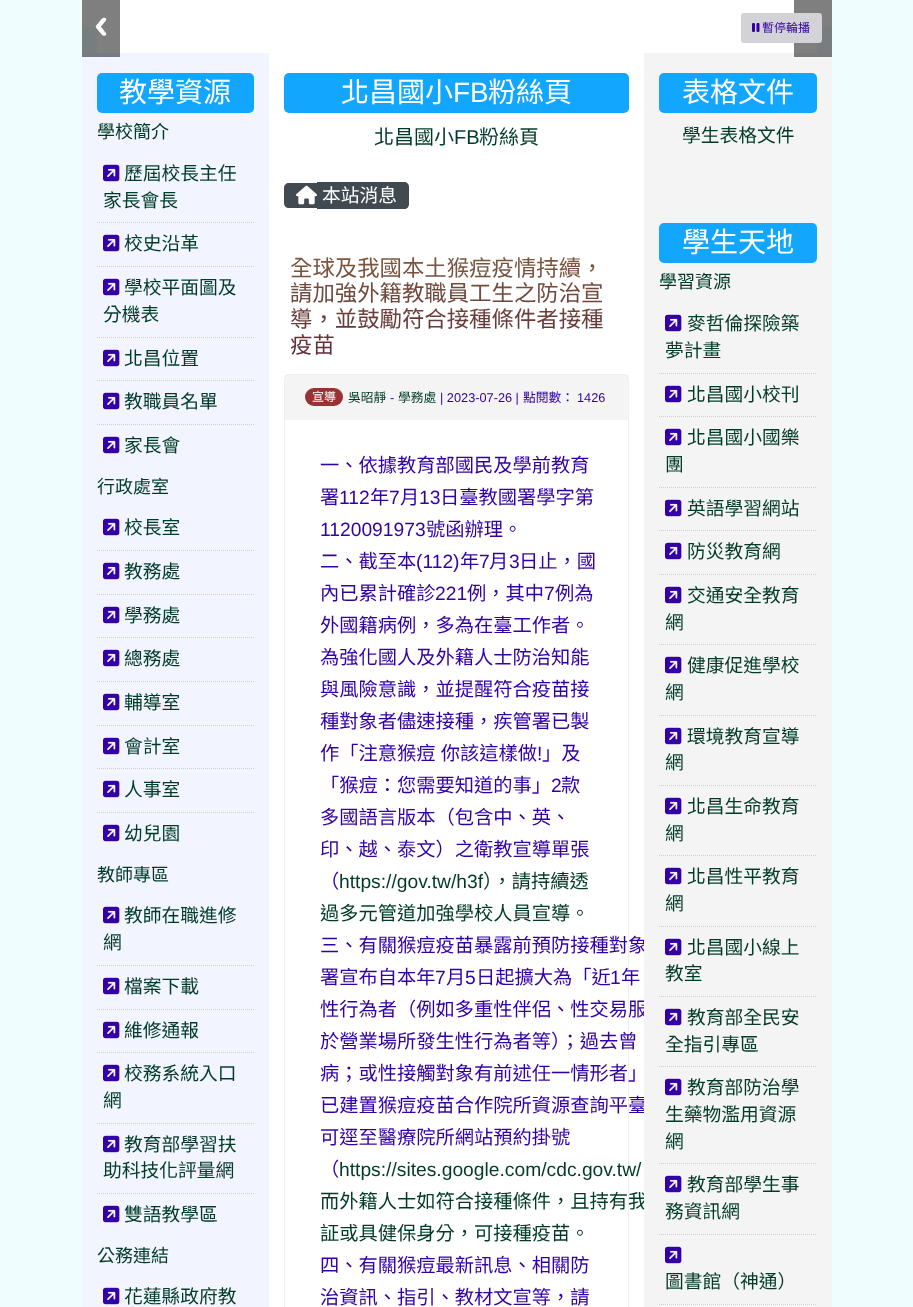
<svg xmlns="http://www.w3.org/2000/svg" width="913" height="1307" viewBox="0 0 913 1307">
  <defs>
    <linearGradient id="g1" gradientUnits="userSpaceOnUse" x1="457" y1="250" x2="457" y2="364"><stop offset="0" stop-color="rgb(126,92,64)"/><stop offset="1" stop-color="rgb(92,41,56)"/></linearGradient>
  </defs>
  <rect width="100%" height="100%" fill="rgb(240,253,255)"/>
  <rect x="82" y="0" width="750" height="27" fill="rgb(255,255,255)"/>
  <rect x="97" y="27" width="720" height="26" fill="rgb(255,255,255)"/>
  <rect x="82" y="53" width="187" height="1254" fill="rgb(242,244,255)"/>
  <image x="82" y="0" width="38" height="57" href="pic1.png"/>
  <rect x="269" y="53" width="375" height="1254" fill="rgb(255,255,255)"/>
  <rect x="284.5" y="374.5" width="344" height="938" rx="4.5" fill="none" stroke="rgb(239,239,239)"/>
  <g font-family="Noto Sans CJK TC" font-size="19.25" fill="rgb(51,0,167)">
    <text x="320" y="952">三、有關猴痘疫苗暴露前預防接種對象</text>
    <text x="320" y="1016">性行為者（例如多重性伴侶、性交易服</text>
    <text x="320" y="1112">已建置猴痘疫苗合作院所資源查詢平臺</text>
  </g>
  <text x="320" y="1208" font-family="Noto Sans CJK TC" font-size="19.25" fill="rgb(0,59,39)">而外籍人士如符合接種條件，且持有我</text>
  <rect x="644" y="53" width="188" height="1254" fill="rgb(244,244,244)"/>
  <image x="794" y="0" width="38" height="57" href="pic3.png"/>
  <rect x="741" y="13" width="81" height="30" rx="3" fill="rgb(211,210,214)"/>
  <image x="752" y="23" width="8" height="9" href="pic2.png"/>
  <text x="762" y="32" font-family="Noto Sans CJK TC" font-size="12" fill="rgb(51,0,167)">暫停輪播</text>
  <rect x="97" y="73" width="157" height="40" rx="5" fill="rgb(19,166,255)"/>
  <text x="119" y="102" font-family="Noto Sans CJK TC" font-size="28" fill="rgb(255,255,255)">教學資源</text>
  <text x="97" y="138" font-family="Noto Sans CJK TC" font-size="18" fill="rgb(0,59,39)">學校簡介</text>
  <path d="M97 222.5H254" fill="none" stroke="rgb(207,207,207)" stroke-dasharray="1 1"/>
  <image x="103" y="164" width="17" height="18" href="pic4.png"/>
  <g font-family="Noto Sans CJK TC" font-size="18.75" fill="rgb(0,59,39)">
    <text x="124" y="180">歷屆校長主任</text>
    <text x="103" y="207">家長會長</text>
  </g>
  <path d="M97 266.5H254" fill="none" stroke="rgb(207,207,207)" stroke-dasharray="1 1"/>
  <image x="103" y="234" width="17" height="18" href="pic4.png"/>
  <text x="124" y="250" font-family="Noto Sans CJK TC" font-size="18.75" fill="rgb(0,59,39)">校史沿革</text>
  <path d="M97 337.5H254" fill="none" stroke="rgb(207,207,207)" stroke-dasharray="1 1"/>
  <image x="103" y="278" width="17" height="18" href="pic4.png"/>
  <g font-family="Noto Sans CJK TC" font-size="18.75" fill="rgb(0,59,39)">
    <text x="124" y="294">學校平面圖及</text>
    <text x="103" y="321">分機表</text>
  </g>
  <path d="M97 380.5H254" fill="none" stroke="rgb(207,207,207)" stroke-dasharray="1 1"/>
  <image x="103" y="349" width="17" height="18" href="pic4.png"/>
  <text x="124" y="365" font-family="Noto Sans CJK TC" font-size="18.75" fill="rgb(0,59,39)">北昌位置</text>
  <path d="M97 424.5H254" fill="none" stroke="rgb(207,207,207)" stroke-dasharray="1 1"/>
  <image x="103" y="392" width="17" height="18" href="pic4.png"/>
  <text x="124" y="408" font-family="Noto Sans CJK TC" font-size="18.75" fill="rgb(0,59,39)">教職員名單</text>
  <image x="103" y="436" width="17" height="18" href="pic4.png"/>
  <text x="124" y="452" font-family="Noto Sans CJK TC" font-size="18.75" fill="rgb(0,59,39)">家長會</text>
  <text x="97" y="493" font-family="Noto Sans CJK TC" font-size="18" fill="rgb(0,59,39)">行政處室</text>
  <path d="M97 550.5H254" fill="none" stroke="rgb(207,207,207)" stroke-dasharray="1 1"/>
  <image x="103" y="518" width="17" height="18" href="pic4.png"/>
  <text x="124" y="534" font-family="Noto Sans CJK TC" font-size="18.75" fill="rgb(0,59,39)">校長室</text>
  <path d="M97 594.5H254" fill="none" stroke="rgb(207,207,207)" stroke-dasharray="1 1"/>
  <image x="103" y="562" width="17" height="18" href="pic4.png"/>
  <text x="124" y="578" font-family="Noto Sans CJK TC" font-size="18.75" fill="rgb(0,59,39)">教務處</text>
  <path d="M97 637.5H254" fill="none" stroke="rgb(207,207,207)" stroke-dasharray="1 1"/>
  <image x="103" y="606" width="17" height="18" href="pic4.png"/>
  <text x="124" y="622" font-family="Noto Sans CJK TC" font-size="18.75" fill="rgb(0,59,39)">學務處</text>
  <path d="M97 681.5H254" fill="none" stroke="rgb(207,207,207)" stroke-dasharray="1 1"/>
  <image x="103" y="649" width="17" height="18" href="pic4.png"/>
  <text x="124" y="665" font-family="Noto Sans CJK TC" font-size="18.75" fill="rgb(0,59,39)">總務處</text>
  <path d="M97 725.5H254" fill="none" stroke="rgb(207,207,207)" stroke-dasharray="1 1"/>
  <image x="103" y="693" width="17" height="18" href="pic4.png"/>
  <text x="124" y="709" font-family="Noto Sans CJK TC" font-size="18.75" fill="rgb(0,59,39)">輔導室</text>
  <path d="M97 768.5H254" fill="none" stroke="rgb(207,207,207)" stroke-dasharray="1 1"/>
  <image x="103" y="737" width="17" height="18" href="pic4.png"/>
  <text x="124" y="753" font-family="Noto Sans CJK TC" font-size="18.75" fill="rgb(0,59,39)">會計室</text>
  <path d="M97 812.5H254" fill="none" stroke="rgb(207,207,207)" stroke-dasharray="1 1"/>
  <image x="103" y="780" width="17" height="18" href="pic4.png"/>
  <text x="124" y="796" font-family="Noto Sans CJK TC" font-size="18.75" fill="rgb(0,59,39)">人事室</text>
  <image x="103" y="824" width="17" height="18" href="pic4.png"/>
  <text x="124" y="840" font-family="Noto Sans CJK TC" font-size="18.75" fill="rgb(0,59,39)">幼兒園</text>
  <text x="97" y="881" font-family="Noto Sans CJK TC" font-size="18" fill="rgb(0,59,39)">教師專區</text>
  <path d="M97 965.5H254" fill="none" stroke="rgb(207,207,207)" stroke-dasharray="1 1"/>
  <image x="103" y="906" width="17" height="18" href="pic4.png"/>
  <g font-family="Noto Sans CJK TC" font-size="18.75" fill="rgb(0,59,39)">
    <text x="124" y="922">教師在職進修</text>
    <text x="103" y="949">網</text>
  </g>
  <path d="M97 1009.5H254" fill="none" stroke="rgb(207,207,207)" stroke-dasharray="1 1"/>
  <image x="103" y="977" width="17" height="18" href="pic4.png"/>
  <text x="124" y="993" font-family="Noto Sans CJK TC" font-size="18.75" fill="rgb(0,59,39)">檔案下載</text>
  <path d="M97 1052.5H254" fill="none" stroke="rgb(207,207,207)" stroke-dasharray="1 1"/>
  <image x="103" y="1021" width="17" height="18" href="pic4.png"/>
  <text x="124" y="1037" font-family="Noto Sans CJK TC" font-size="18.75" fill="rgb(0,59,39)">維修通報</text>
  <path d="M97 1123.5H254" fill="none" stroke="rgb(207,207,207)" stroke-dasharray="1 1"/>
  <image x="103" y="1064" width="17" height="18" href="pic4.png"/>
  <g font-family="Noto Sans CJK TC" font-size="18.75" fill="rgb(0,59,39)">
    <text x="124" y="1080">校務系統入口</text>
    <text x="103" y="1107">網</text>
  </g>
  <path d="M97 1193.5H254" fill="none" stroke="rgb(207,207,207)" stroke-dasharray="1 1"/>
  <image x="103" y="1135" width="17" height="18" href="pic4.png"/>
  <g font-family="Noto Sans CJK TC" font-size="18.75" fill="rgb(0,59,39)">
    <text x="124" y="1151">教育部學習扶</text>
    <text x="103" y="1177">助科技化評量網</text>
  </g>
  <image x="103" y="1205" width="17" height="18" href="pic4.png"/>
  <text x="124" y="1221" font-family="Noto Sans CJK TC" font-size="18.75" fill="rgb(0,59,39)">雙語教學區</text>
  <text x="97" y="1262" font-family="Noto Sans CJK TC" font-size="18" fill="rgb(0,59,39)">公務連結</text>
  <image x="103" y="1287" width="17" height="18" href="pic4.png"/>
  <text x="124" y="1303" font-family="Noto Sans CJK TC" font-size="18.75" fill="rgb(0,59,39)">花蓮縣政府教</text>
  <rect x="284" y="73" width="345" height="40" rx="5" fill="rgb(19,166,255)"/>
  <text x="341" y="102" font-family="Noto Sans CJK TC" font-size="28" fill="rgb(255,255,255)">北昌國小</text>
  <text x="453" y="102" font-family="Liberation Sans" font-size="28" fill="rgb(255,255,255)">FB</text>
  <text x="488" y="102" font-family="Noto Sans CJK TC" font-size="28" fill="rgb(255,255,255)">粉絲頁</text>
  <text x="374" y="144" font-family="Noto Sans CJK TC" font-size="20" fill="rgb(0,59,39)">北昌國小</text>
  <text x="454" y="144" font-family="Liberation Sans" font-size="20" fill="rgb(0,59,39)">FB</text>
  <text x="479" y="144" font-family="Noto Sans CJK TC" font-size="20" fill="rgb(0,59,39)">粉絲頁</text>
  <path d="M289 183H317V208H289C286 208 284 206 284 203V188C284 185 286 183 289 183Z" fill="rgb(64,74,80)"/>
  <path d="M317 182H404C407 182 409 184 409 187V204C409 207 407 209 404 209H317Z" fill="rgb(64,74,80)"/>
  <image x="296" y="185" width="21" height="20" href="pic5.png"/>
  <text x="322" y="202" font-family="Noto Sans CJK TC" font-size="18.75" fill="rgb(255,255,255)">本站消息</text>
  <g font-family="Noto Sans CJK TC" font-size="22.4" fill="url(#g1)">
    <text>
      <tspan x="290" y="276">全球及我國本土猴痘疫情持續，</tspan>
      <tspan x="290" y="301">請加強外籍教職員工生之防治宣</tspan>
      <tspan x="290" y="327">導，並鼓勵符合接種條件者接種</tspan>
      <tspan x="290" y="353">疫苗</tspan>
    </text>
  </g>
  <rect x="285" y="375" width="343" height="45" fill="rgba(200,200,200,0.2)"/>
  <rect x="305" y="388" width="38" height="18" rx="9" fill="rgb(153,51,51)"/>
  <text x="312" y="401" font-family="Noto Sans CJK TC" font-size="12" fill="rgb(255,255,255)">宣導</text>
  <text x="348" y="402" font-family="Noto Sans CJK TC" font-size="12.75" fill="rgb(0,59,39)">吳昭靜</text>
  <text x="390" y="402" font-family="Liberation Sans" font-size="12.75" fill="rgb(51,0,167)">-</text>
  <text x="398" y="402" font-family="Noto Sans CJK TC" font-size="12.75" fill="rgb(0,59,39)">學務處</text>
  <text x="440" y="402" font-family="Liberation Sans" font-size="12.75" fill="rgb(51,0,167)">| 2023-07-26 |</text>
  <text x="523" y="402" font-family="Noto Sans CJK TC" font-size="12.75" fill="rgb(51,0,167)">點閱數：</text>
  <text x="577" y="402" font-family="Liberation Sans" font-size="12.75" fill="rgb(51,0,167)">1426</text>
  <g font-family="Noto Sans CJK TC" font-size="19.25" fill="rgb(51,0,167)">
    <text>
      <tspan x="320" y="472">一、依據教育部國民及學前教育</tspan>
      <tspan x="320" y="504">署</tspan>
    </text>
  </g>
  <text x="339" y="504" font-family="Liberation Sans" font-size="19.25" fill="rgb(51,0,167)">112</text>
  <text x="370" y="504" font-family="Noto Sans CJK TC" font-size="19.25" fill="rgb(51,0,167)">年</text>
  <text x="389" y="504" font-family="Liberation Sans" font-size="19.25" fill="rgb(51,0,167)">7</text>
  <text x="400" y="504" font-family="Noto Sans CJK TC" font-size="19.25" fill="rgb(51,0,167)">月</text>
  <text x="419" y="504" font-family="Liberation Sans" font-size="19.25" fill="rgb(51,0,167)">13</text>
  <text x="440" y="504" font-family="Noto Sans CJK TC" font-size="19.25" fill="rgb(51,0,167)">日臺教國署學字第</text>
  <text x="320" y="536" font-family="Liberation Sans" font-size="19.25" fill="rgb(51,0,167)">1120091973</text>
  <g font-family="Noto Sans CJK TC" font-size="19.25" fill="rgb(51,0,167)">
    <text x="426" y="536">號函辦理。</text>
    <text x="320" y="568">二、截至本</text>
  </g>
  <text x="416" y="568" font-family="Liberation Sans" font-size="19.25" fill="rgb(51,0,167)">(112)</text>
  <text x="460" y="568" font-family="Noto Sans CJK TC" font-size="19.25" fill="rgb(51,0,167)">年</text>
  <text x="479" y="568" font-family="Liberation Sans" font-size="19.25" fill="rgb(51,0,167)">7</text>
  <text x="489" y="568" font-family="Noto Sans CJK TC" font-size="19.25" fill="rgb(51,0,167)">月</text>
  <text x="509" y="568" font-family="Liberation Sans" font-size="19.25" fill="rgb(51,0,167)">3</text>
  <g font-family="Noto Sans CJK TC" font-size="19.25" fill="rgb(51,0,167)">
    <text x="519" y="568">日止，國</text>
    <text x="320" y="600">內已累計確診</text>
  </g>
  <text x="435" y="600" font-family="Liberation Sans" font-size="19.25" fill="rgb(51,0,167)">221</text>
  <text x="467" y="600" font-family="Noto Sans CJK TC" font-size="19.25" fill="rgb(51,0,167)">例，其中</text>
  <text x="544" y="600" font-family="Liberation Sans" font-size="19.25" fill="rgb(51,0,167)">7</text>
  <g font-family="Noto Sans CJK TC" font-size="19.25" fill="rgb(51,0,167)">
    <text x="555" y="600">例為</text>
    <text>
      <tspan x="320" y="632">外國籍病例，多為在臺工作者。</tspan>
      <tspan x="320" y="664">為強化國人及外籍人士防治知能</tspan>
      <tspan x="320" y="696">與風險意識，並提醒符合疫苗接</tspan>
      <tspan x="320" y="728">種對象者儘速接種，疾管署已製</tspan>
      <tspan x="320" y="760" word-spacing="1">作「注意猴痘 你該這樣做</tspan>
    </text>
  </g>
  <text x="537" y="760" font-family="Liberation Sans" font-size="19.25" fill="rgb(51,0,167)">!</text>
  <g font-family="Noto Sans CJK TC" font-size="19.25" fill="rgb(51,0,167)">
    <text x="542" y="760">」及</text>
    <text x="320" y="792">「猴痘：您需要知道的事」</text>
  </g>
  <text x="551" y="792" font-family="Liberation Sans" font-size="19.25" fill="rgb(51,0,167)">2</text>
  <g font-family="Noto Sans CJK TC" font-size="19.25" fill="rgb(51,0,167)">
    <text x="561" y="792">款</text>
    <text>
      <tspan x="320" y="824">多國語言版本（包含中、英、</tspan>
      <tspan x="320" y="856">印、越、泰文）之衛教宣導單張</tspan>
      <tspan x="320" y="888">（</tspan>
    </text>
  </g>
  <text x="339" y="888" font-family="Liberation Sans" font-size="19.25" fill="rgb(0,59,39)">https://gov.tw/h3f</text>
  <g font-family="Noto Sans CJK TC" font-size="19.25" fill="rgb(0,59,39)">
    <text x="483" y="888">），請持續透</text>
    <text x="320" y="920">過多元管道加強學校人員宣導。</text>
  </g>
  <text x="320" y="984" font-family="Noto Sans CJK TC" font-size="19.25" fill="rgb(51,0,167)">署宣布自本年</text>
  <text x="435" y="984" font-family="Liberation Sans" font-size="19.25" fill="rgb(51,0,167)">7</text>
  <text x="446" y="984" font-family="Noto Sans CJK TC" font-size="19.25" fill="rgb(51,0,167)">月</text>
  <text x="465" y="984" font-family="Liberation Sans" font-size="19.25" fill="rgb(51,0,167)">5</text>
  <text x="476" y="984" font-family="Noto Sans CJK TC" font-size="19.25" fill="rgb(51,0,167)">日起擴大為「近</text>
  <text x="610" y="984" font-family="Liberation Sans" font-size="19.25" fill="rgb(51,0,167)">1</text>
  <g font-family="Noto Sans CJK TC" font-size="19.25" fill="rgb(51,0,167)">
    <text x="621" y="984">年</text>
    <text>
      <tspan x="320" y="1048">於營業場所發生性行為者等）；過去曾</tspan>
      <tspan x="320" y="1080">病；或性接觸對象有前述任一情形者」</tspan>
    </text>
    <text>
      <tspan x="320" y="1144">可逕至醫療院所網站預約掛號</tspan>
      <tspan x="320" y="1176">（</tspan>
    </text>
  </g>
  <text x="339" y="1176" font-family="Liberation Sans" font-size="19.25" fill="rgb(0,59,39)">https://sites.google.com/cdc.gov.tw/</text>
  <text x="320" y="1240" font-family="Noto Sans CJK TC" font-size="19.25" fill="rgb(0,59,39)">証或具健保身分，可接種疫苗。</text>
  <g font-family="Noto Sans CJK TC" font-size="19.25" fill="rgb(51,0,167)">
    <text>
      <tspan x="320" y="1272">四、有關猴痘最新訊息、相關防</tspan>
      <tspan x="320" y="1304">治資訊、指引、教材文宣等，請</tspan>
    </text>
  </g>
  <rect x="659" y="73" width="158" height="40" rx="5" fill="rgb(19,166,255)"/>
  <text x="682" y="102" font-family="Noto Sans CJK TC" font-size="28" fill="rgb(255,255,255)">表格文件</text>
  <text x="682" y="142" font-family="Noto Sans CJK TC" font-size="18.75" fill="rgb(0,59,39)">學生表格文件</text>
  <rect x="659" y="223" width="158" height="40" rx="5" fill="rgb(19,166,255)"/>
  <text x="682" y="252" font-family="Noto Sans CJK TC" font-size="28" fill="rgb(255,255,255)">學生天地</text>
  <text x="659" y="288" font-family="Noto Sans CJK TC" font-size="18" fill="rgb(0,59,39)">學習資源</text>
  <path d="M659 373.5H817" fill="none" stroke="rgb(207,207,207)" stroke-dasharray="1 1"/>
  <image x="665" y="314" width="17" height="18" href="pic6.png"/>
  <g font-family="Noto Sans CJK TC" font-size="18.75" fill="rgb(0,59,39)">
    <text x="687" y="330">麥哲倫探險築</text>
    <text x="665" y="357">夢計畫</text>
  </g>
  <path d="M659 416.5H817" fill="none" stroke="rgb(207,207,207)" stroke-dasharray="1 1"/>
  <image x="665" y="385" width="17" height="18" href="pic6.png"/>
  <text x="687" y="401" font-family="Noto Sans CJK TC" font-size="18.75" fill="rgb(0,59,39)">北昌國小校刊</text>
  <path d="M659 487.5H817" fill="none" stroke="rgb(207,207,207)" stroke-dasharray="1 1"/>
  <image x="665" y="428" width="17" height="18" href="pic6.png"/>
  <g font-family="Noto Sans CJK TC" font-size="18.75" fill="rgb(0,59,39)">
    <text x="687" y="444">北昌國小國樂</text>
    <text x="665" y="471">團</text>
  </g>
  <path d="M659 530.5H817" fill="none" stroke="rgb(207,207,207)" stroke-dasharray="1 1"/>
  <image x="665" y="499" width="17" height="18" href="pic6.png"/>
  <text x="687" y="515" font-family="Noto Sans CJK TC" font-size="18.75" fill="rgb(0,59,39)">英語學習網站</text>
  <path d="M659 574.5H817" fill="none" stroke="rgb(207,207,207)" stroke-dasharray="1 1"/>
  <image x="665" y="542" width="17" height="18" href="pic6.png"/>
  <text x="687" y="558" font-family="Noto Sans CJK TC" font-size="18.75" fill="rgb(0,59,39)">防災教育網</text>
  <path d="M659 644.5H817" fill="none" stroke="rgb(207,207,207)" stroke-dasharray="1 1"/>
  <image x="665" y="586" width="17" height="18" href="pic6.png"/>
  <g font-family="Noto Sans CJK TC" font-size="18.75" fill="rgb(0,59,39)">
    <text x="687" y="602">交通安全教育</text>
    <text x="665" y="629">網</text>
  </g>
  <path d="M659 715.5H817" fill="none" stroke="rgb(207,207,207)" stroke-dasharray="1 1"/>
  <image x="665" y="656" width="17" height="18" href="pic6.png"/>
  <g font-family="Noto Sans CJK TC" font-size="18.75" fill="rgb(0,59,39)">
    <text x="687" y="672">健康促進學校</text>
    <text x="665" y="699">網</text>
  </g>
  <path d="M659 785.5H817" fill="none" stroke="rgb(207,207,207)" stroke-dasharray="1 1"/>
  <image x="665" y="727" width="17" height="18" href="pic6.png"/>
  <g font-family="Noto Sans CJK TC" font-size="18.75" fill="rgb(0,59,39)">
    <text x="687" y="743">環境教育宣導</text>
    <text x="665" y="769">網</text>
  </g>
  <path d="M659 855.5H817" fill="none" stroke="rgb(207,207,207)" stroke-dasharray="1 1"/>
  <image x="665" y="797" width="17" height="18" href="pic6.png"/>
  <g font-family="Noto Sans CJK TC" font-size="18.75" fill="rgb(0,59,39)">
    <text x="687" y="813">北昌生命教育</text>
    <text x="665" y="840">網</text>
  </g>
  <path d="M659 926.5H817" fill="none" stroke="rgb(207,207,207)" stroke-dasharray="1 1"/>
  <image x="665" y="867" width="17" height="18" href="pic6.png"/>
  <g font-family="Noto Sans CJK TC" font-size="18.75" fill="rgb(0,59,39)">
    <text x="687" y="883">北昌性平教育</text>
    <text x="665" y="910">網</text>
  </g>
  <path d="M659 996.5H817" fill="none" stroke="rgb(207,207,207)" stroke-dasharray="1 1"/>
  <image x="665" y="938" width="17" height="18" href="pic6.png"/>
  <g font-family="Noto Sans CJK TC" font-size="18.75" fill="rgb(0,59,39)">
    <text x="687" y="954">北昌國小線上</text>
    <text x="665" y="980">教室</text>
  </g>
  <path d="M659 1066.5H817" fill="none" stroke="rgb(207,207,207)" stroke-dasharray="1 1"/>
  <image x="665" y="1008" width="17" height="18" href="pic6.png"/>
  <g font-family="Noto Sans CJK TC" font-size="18.75" fill="rgb(0,59,39)">
    <text x="687" y="1024">教育部全民安</text>
    <text x="665" y="1051">全指引專區</text>
  </g>
  <path d="M659 1163.5H817" fill="none" stroke="rgb(207,207,207)" stroke-dasharray="1 1"/>
  <image x="665" y="1078" width="17" height="18" href="pic6.png"/>
  <g font-family="Noto Sans CJK TC" font-size="18.75" fill="rgb(0,59,39)">
    <text x="687" y="1094">教育部防治學</text>
    <text>
      <tspan x="665" y="1121">生藥物濫用資源</tspan>
      <tspan x="665" y="1148">網</tspan>
    </text>
  </g>
  <path d="M659 1234.5H817" fill="none" stroke="rgb(207,207,207)" stroke-dasharray="1 1"/>
  <image x="665" y="1175" width="17" height="18" href="pic6.png"/>
  <g font-family="Noto Sans CJK TC" font-size="18.75" fill="rgb(0,59,39)">
    <text x="687" y="1191">教育部學生事</text>
    <text x="665" y="1218">務資訊網</text>
  </g>
  <path d="M659 1304.5H817" fill="none" stroke="rgb(207,207,207)" stroke-dasharray="1 1"/>
  <image x="665" y="1246" width="17" height="18" href="pic6.png"/>
  <text x="665" y="1288" font-family="Noto Sans CJK TC" font-size="18.75" fill="rgb(0,59,39)">圖書館（神通）</text>
</svg>
